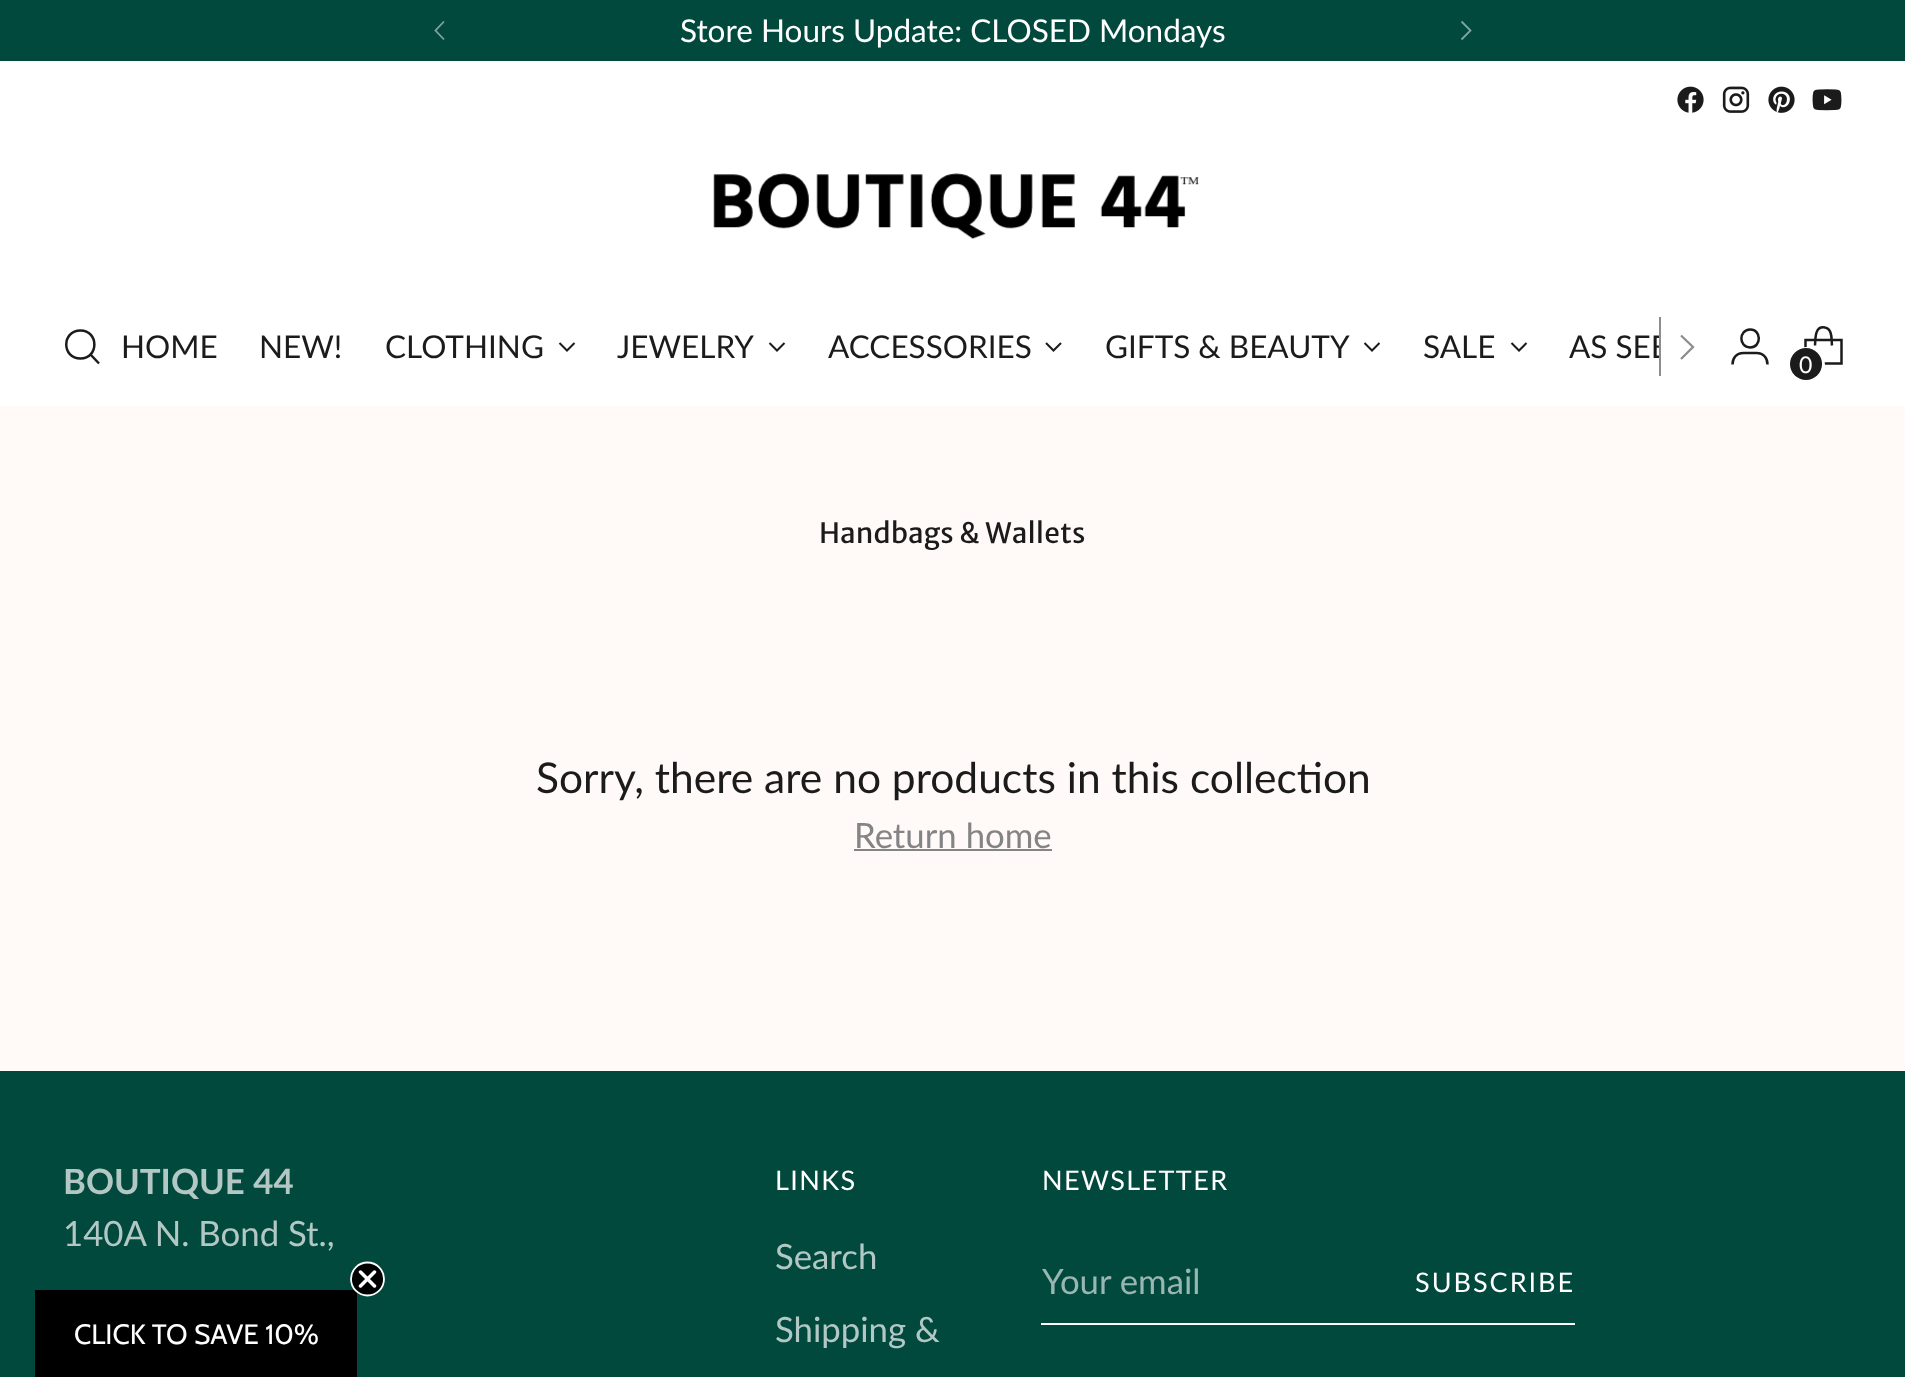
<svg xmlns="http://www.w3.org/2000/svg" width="1905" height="1377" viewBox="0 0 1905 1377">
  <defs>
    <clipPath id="clip1"><rect x="119" y="287" width="1540" height="119"/></clipPath>
  </defs>
  <rect width="100%" height="100%" fill="rgb(255,250,248)"/>
  <rect x="0" y="0" width="1905" height="61" fill="rgb(2,73,61)"/>
  <text x="680" y="42" font-family="Lato" font-size="31.5" fill="rgb(255,255,255)">Store Hours Update: CLOSED Mondays</text>
  <path d="M444 21.5L435.5 30.5L444 39.5" fill="none" stroke="rgb(129,164,158)" stroke-width="1.8"/>
  <path d="M1461.5 39.5L1470.5 30.5L1461.5 21.5" fill="none" stroke="rgb(129,164,158)" stroke-width="1.8"/>
  <rect x="0" y="61" width="1905" height="345" fill="rgb(255,255,255)"/>
  <image x="1677" y="86" width="27" height="27" href="pic1.png"/>
  <image x="1722" y="86" width="28" height="27" href="pic2.png"/>
  <image x="1768" y="86" width="27" height="27" href="pic3.png"/>
  <image x="1812" y="89" width="30" height="22" href="pic4.png"/>
  <image x="713" y="173" width="486" height="66" href="pic5.png"/>
  <path d="M80.5 358.5C99 358.5 99 330.5 80.5 330.5C61.5 330.5 61.5 358.5 80.5 358.5Z" fill="none" stroke="rgb(28,27,27)" stroke-width="2.5" stroke-linecap="round"/>
  <path d="M90.5 354.5L99 363.5" fill="none" stroke="rgb(28,27,27)" stroke-width="2.5"/>
  <g font-family="Lato" font-size="31.5" fill="rgb(28,27,27)">
    <text x="121" y="358">HOME</text>
    <text x="259" y="358">NEW!</text>
    <text x="385" y="358">CLOTHING</text>
  </g>
  <path d="M559.5 343L567 350.5L574.5 343" fill="none" stroke="rgb(28,27,27)" stroke-width="2"/>
  <text x="617" y="358" font-family="Lato" font-size="31.5" fill="rgb(28,27,27)">JEWELRY</text>
  <path d="M769.5 343L777 350.5L784.5 343" fill="none" stroke="rgb(28,27,27)" stroke-width="2"/>
  <text x="828" y="358" font-family="Lato" font-size="31.5" fill="rgb(28,27,27)">ACCESSORIES</text>
  <path d="M1046 343L1053.5 350.5L1061 343" fill="none" stroke="rgb(28,27,27)" stroke-width="2"/>
  <text x="1105" y="358" font-family="Lato" font-size="31.5" fill="rgb(28,27,27)">GIFTS &amp; BEAUTY</text>
  <path d="M1364.5 343L1372 350.5L1379.5 343" fill="none" stroke="rgb(28,27,27)" stroke-width="2"/>
  <text x="1423" y="358" font-family="Lato" font-size="31.5" fill="rgb(28,27,27)">SALE</text>
  <path d="M1511.5 343L1519 350.5L1526.5 343" fill="none" stroke="rgb(28,27,27)" stroke-width="2"/>
  <g clip-path="url(#clip1)">
    <text x="1569" y="358" font-family="Lato" font-size="31.5" fill="rgb(28,27,27)">AS SEE</text>
  </g>
  <rect x="1659" y="317" width="2" height="59" fill="rgb(142,141,141)"/>
  <path d="M1681 359L1693 347L1681 335.5" fill="none" stroke="rgb(142,141,141)" stroke-width="2.3"/>
  <path d="M1750 347.5C1762 347.5 1761.5 329 1750 329.5C1738.5 330 1738.5 347 1750 347.5ZM1732.5 364.5C1732.5 358.5 1736 353 1743.5 353H1756.5C1764 353 1767.5 358.5 1767.5 364.5" fill="none" stroke="rgb(28,27,27)" stroke-width="2.5"/>
  <path d="M1832 345.5C1831.5 341 1832 336.5 1830.5 332.5C1829.5 330 1828 328 1825 327.5C1814.5 325.5 1815.5 339 1815 345.5" fill="none" stroke="rgb(28,27,27)" stroke-width="2.5" stroke-linejoin="bevel"/>
  <path d="M1841.5 363.5V340H1805.5V363.5Z" fill="none" stroke="rgb(28,27,27)" stroke-width="2.5"/>
  <circle cx="1807" cy="365" r="16.5" fill="none" stroke="rgb(255,255,255)" stroke-width="3"/>
  <circle cx="1806" cy="364" r="16" fill="rgb(28,27,27)"/>
  <text x="1799" y="373" font-family="Lato" font-size="23" fill="rgb(255,255,255)">0</text>
  <text x="819" y="543" font-family="Merriweather Sans" font-size="28" letter-spacing="0.1" fill="rgb(28,27,27)">Handbags &amp; Wallets</text>
  <text x="536" y="793" font-family="Lato" font-size="42.5" fill="rgb(28,27,27)">Sorry, there are no products in this collection</text>
  <text x="854" y="848" font-family="Lato" font-size="34.75" fill="rgb(132,132,132)">Return home</text>
  <rect x="854" y="849" width="198" height="2" fill="rgb(132,132,132)"/>
  <rect x="0" y="1071" width="1905" height="306" fill="rgb(2,73,61)"/>
  <text x="63" y="1194" font-family="Lato" font-size="34.75" font-weight="bold" fill="rgb(179,200,197)">BOUTIQUE 44</text>
  <text x="63" y="1246" font-family="Lato" font-size="34.75" fill="rgb(179,200,197)">140A N. Bond St.,</text>
  <text x="775" y="1190" font-family="Lato" font-size="27" letter-spacing="1.4" fill="rgb(255,255,255)">LINKS</text>
  <g font-family="Lato" font-size="34.75" fill="rgb(179,200,197)">
    <text x="775" y="1269">Search</text>
    <text x="775" y="1342">Shipping &amp;</text>
  </g>
  <text x="1042" y="1190" font-family="Lato" font-size="27" letter-spacing="1.4" fill="rgb(255,255,255)">NEWSLETTER</text>
  <rect x="1041" y="1323" width="534" height="2" fill="rgb(255,255,255)"/>
  <text x="1042" y="1294" font-family="Lato" font-size="34.75" fill="rgb(154,182,177)">Your email</text>
  <text x="1415" y="1292" font-family="Lato" font-size="27" letter-spacing="2" fill="rgb(255,255,255)">SUBSCRIBE</text>
  <rect x="35" y="1290" width="322" height="87" fill="rgb(0,0,0)"/>
  <circle cx="367.5" cy="1279" r="16.5" fill="rgb(0,0,0)" stroke="rgb(255,255,255)" stroke-width="1.8"/>
  <path d="M360.5 1272L374.5 1286M360.5 1286L374.5 1272Z" fill="none" stroke="rgb(255,255,255)" stroke-width="3.5" stroke-linecap="round" stroke-linejoin="round"/>
  <text x="74" y="1344" font-family="Cabin" font-size="28" fill="rgb(255,255,255)">CLICK TO SAVE 10%</text>
</svg>
